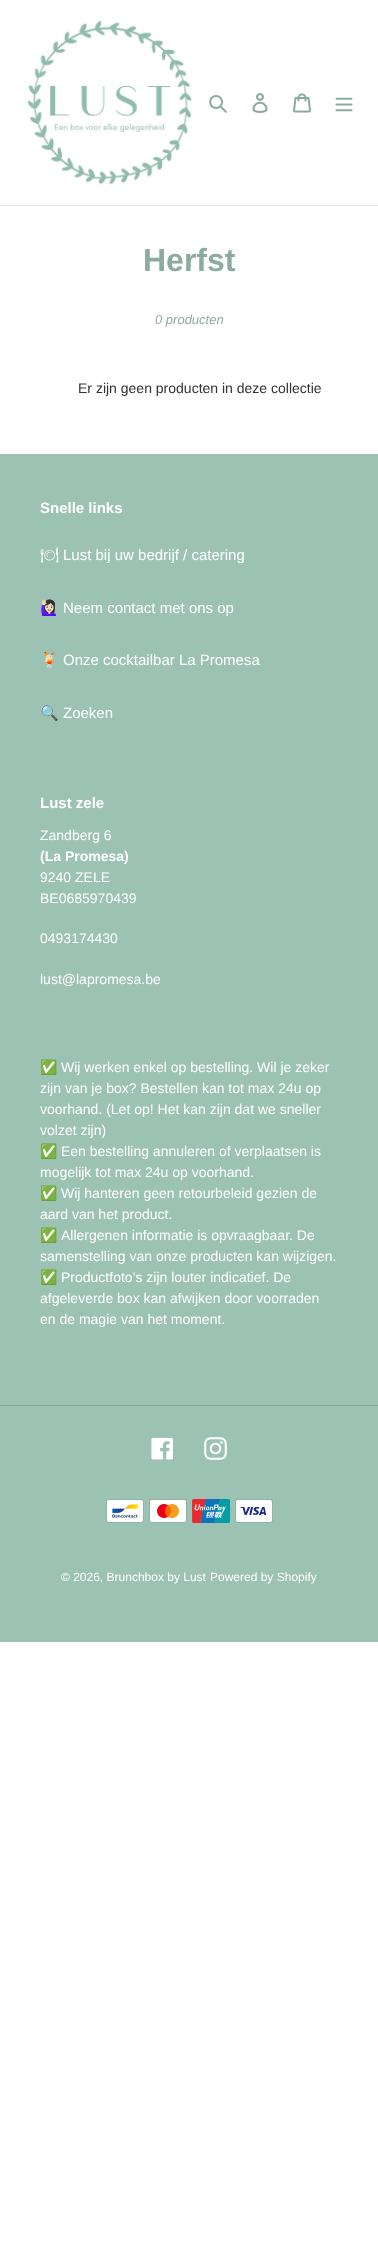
<svg xmlns="http://www.w3.org/2000/svg" width="378" height="2251" viewBox="0 0 378 2251">
  <rect width="100%" height="100%" fill="rgb(255,255,255)"/>
  <rect x="0" y="205" width="378" height="1" fill="rgb(235,235,235)"/>
  <image x="27" y="20" width="166" height="165" href="pic1.png"/>
  <image x="209" y="95" width="18" height="18" href="pic2.png"/>
  <image x="252" y="93" width="16" height="20" href="pic3.png"/>
  <image x="293" y="93" width="18" height="20" href="pic4.png"/>
  <image x="335" y="97" width="18" height="15" href="pic5.png"/>
  <text x="143" y="271" font-family="Liberation Sans" font-size="32" font-weight="bold" fill="rgb(139,171,158)">Herfst</text>
  <text x="155" y="324" font-family="Liberation Sans" font-size="13" font-style="italic" fill="rgb(139,171,158)">0 producten</text>
  <text x="78" y="393" font-family="Liberation Sans" font-size="14" fill="rgb(51,50,50)">Er zijn geen producten in deze collectie</text>
  <rect x="0" y="454" width="378" height="1188" fill="rgb(156,194,179)"/>
  <text x="40" y="513" font-family="Liberation Sans" font-size="15" font-weight="bold" fill="rgb(255,255,255)">Snelle links</text>
  <text x="40" y="560" font-family="Noto Emoji" font-size="15" fill="rgb(255,255,255)">🍽</text>
  <text x="63" y="560" font-family="Liberation Sans" font-size="15" fill="rgb(255,255,255)">Lust bij uw bedrijf / catering</text>
  <text x="40" y="613" font-family="Noto Color Emoji" font-size="15" fill="rgb(255,255,255)">🙋🏻‍♀️</text>
  <text x="63" y="613" font-family="Liberation Sans" font-size="15" fill="rgb(255,255,255)">Neem contact met ons op</text>
  <text x="40" y="665" font-family="Noto Color Emoji" font-size="15" fill="rgb(255,255,255)">🍹</text>
  <text x="63" y="665" font-family="Liberation Sans" font-size="15" fill="rgb(255,255,255)">Onze cocktailbar La Promesa</text>
  <text x="40" y="718" font-family="Noto Color Emoji" font-size="15" fill="rgb(255,255,255)">🔍</text>
  <text x="63" y="718" font-family="Liberation Sans" font-size="15" fill="rgb(255,255,255)">Zoeken</text>
  <text x="40" y="808" font-family="Liberation Sans" font-size="15" font-weight="bold" fill="rgb(255,255,255)">Lust zele</text>
  <text x="40" y="840" font-family="Liberation Sans" font-size="14" fill="rgb(255,255,255)">Zandberg 6</text>
  <text x="40" y="861" font-family="Liberation Sans" font-size="14" font-weight="bold" fill="rgb(255,255,255)">(La Promesa)</text>
  <g font-family="Liberation Sans" font-size="14" fill="rgb(255,255,255)">
    <text>
      <tspan x="40" y="882">9240 ZELE</tspan>
      <tspan x="40" y="903">BE0685970439</tspan>
    </text>
    <text x="40" y="943">0493174430</text>
    <text x="40" y="984">lust@lapromesa.be</text>
  </g>
  <text x="40" y="1072" font-family="Noto Color Emoji" font-size="14" fill="rgb(255,255,255)">✅</text>
  <g font-family="Liberation Sans" font-size="14" fill="rgb(255,255,255)">
    <text x="61" y="1072">Wij werken enkel op bestelling. Wil je zeker</text>
    <text>
      <tspan x="40" y="1093">zijn van je box? Bestellen kan tot max 24u op</tspan>
      <tspan x="40" y="1114">voorhand. (Let op! Het kan zijn dat we sneller</tspan>
      <tspan x="40" y="1135">volzet zijn)</tspan>
    </text>
  </g>
  <text x="40" y="1156" font-family="Noto Color Emoji" font-size="14" fill="rgb(255,255,255)">✅</text>
  <g font-family="Liberation Sans" font-size="14" fill="rgb(255,255,255)">
    <text x="61" y="1156">Een bestelling annuleren of verplaatsen is</text>
    <text x="40" y="1177">mogelijk tot max 24u op voorhand.</text>
  </g>
  <text x="40" y="1198" font-family="Noto Color Emoji" font-size="14" fill="rgb(255,255,255)">✅</text>
  <g font-family="Liberation Sans" font-size="14" fill="rgb(255,255,255)">
    <text x="61" y="1198">Wij hanteren geen retourbeleid gezien de</text>
    <text x="40" y="1219">aard van het product.</text>
  </g>
  <text x="40" y="1240" font-family="Noto Color Emoji" font-size="14" fill="rgb(255,255,255)">✅</text>
  <g font-family="Liberation Sans" font-size="14" fill="rgb(255,255,255)">
    <text x="61" y="1240">Allergenen informatie is opvraagbaar. De</text>
    <text x="40" y="1261">samenstelling van onze producten kan wijzigen.</text>
  </g>
  <text x="40" y="1282" font-family="Noto Color Emoji" font-size="14" fill="rgb(255,255,255)">✅</text>
  <g font-family="Liberation Sans" font-size="14" fill="rgb(255,255,255)">
    <text x="61" y="1282">Productfoto’s zijn louter indicatief. De</text>
    <text>
      <tspan x="40" y="1303">afgeleverde box kan afwijken door voorraden</tspan>
      <tspan x="40" y="1324">en de magie van het moment.</tspan>
    </text>
  </g>
  <rect x="0" y="1405" width="378" height="1" fill="rgb(124,175,155)"/>
  <image x="151" y="1437" width="22" height="23" href="pic6.png"/>
  <image x="204" y="1437" width="23" height="23" href="pic7.png"/>
  <image x="106" y="1499" width="38" height="24" href="pic8.png"/>
  <image x="149" y="1499" width="38" height="24" href="pic9.png"/>
  <image x="192" y="1499" width="38" height="24" href="pic10.png"/>
  <image x="235" y="1499" width="38" height="24" href="pic11.png"/>
  <g font-family="Liberation Sans" font-size="12" fill="rgb(255,255,255)">
    <text x="61" y="1581">© 2026, Brunchbox by Lust</text>
    <text x="210" y="1581">Powered by Shopify</text>
  </g>
</svg>
